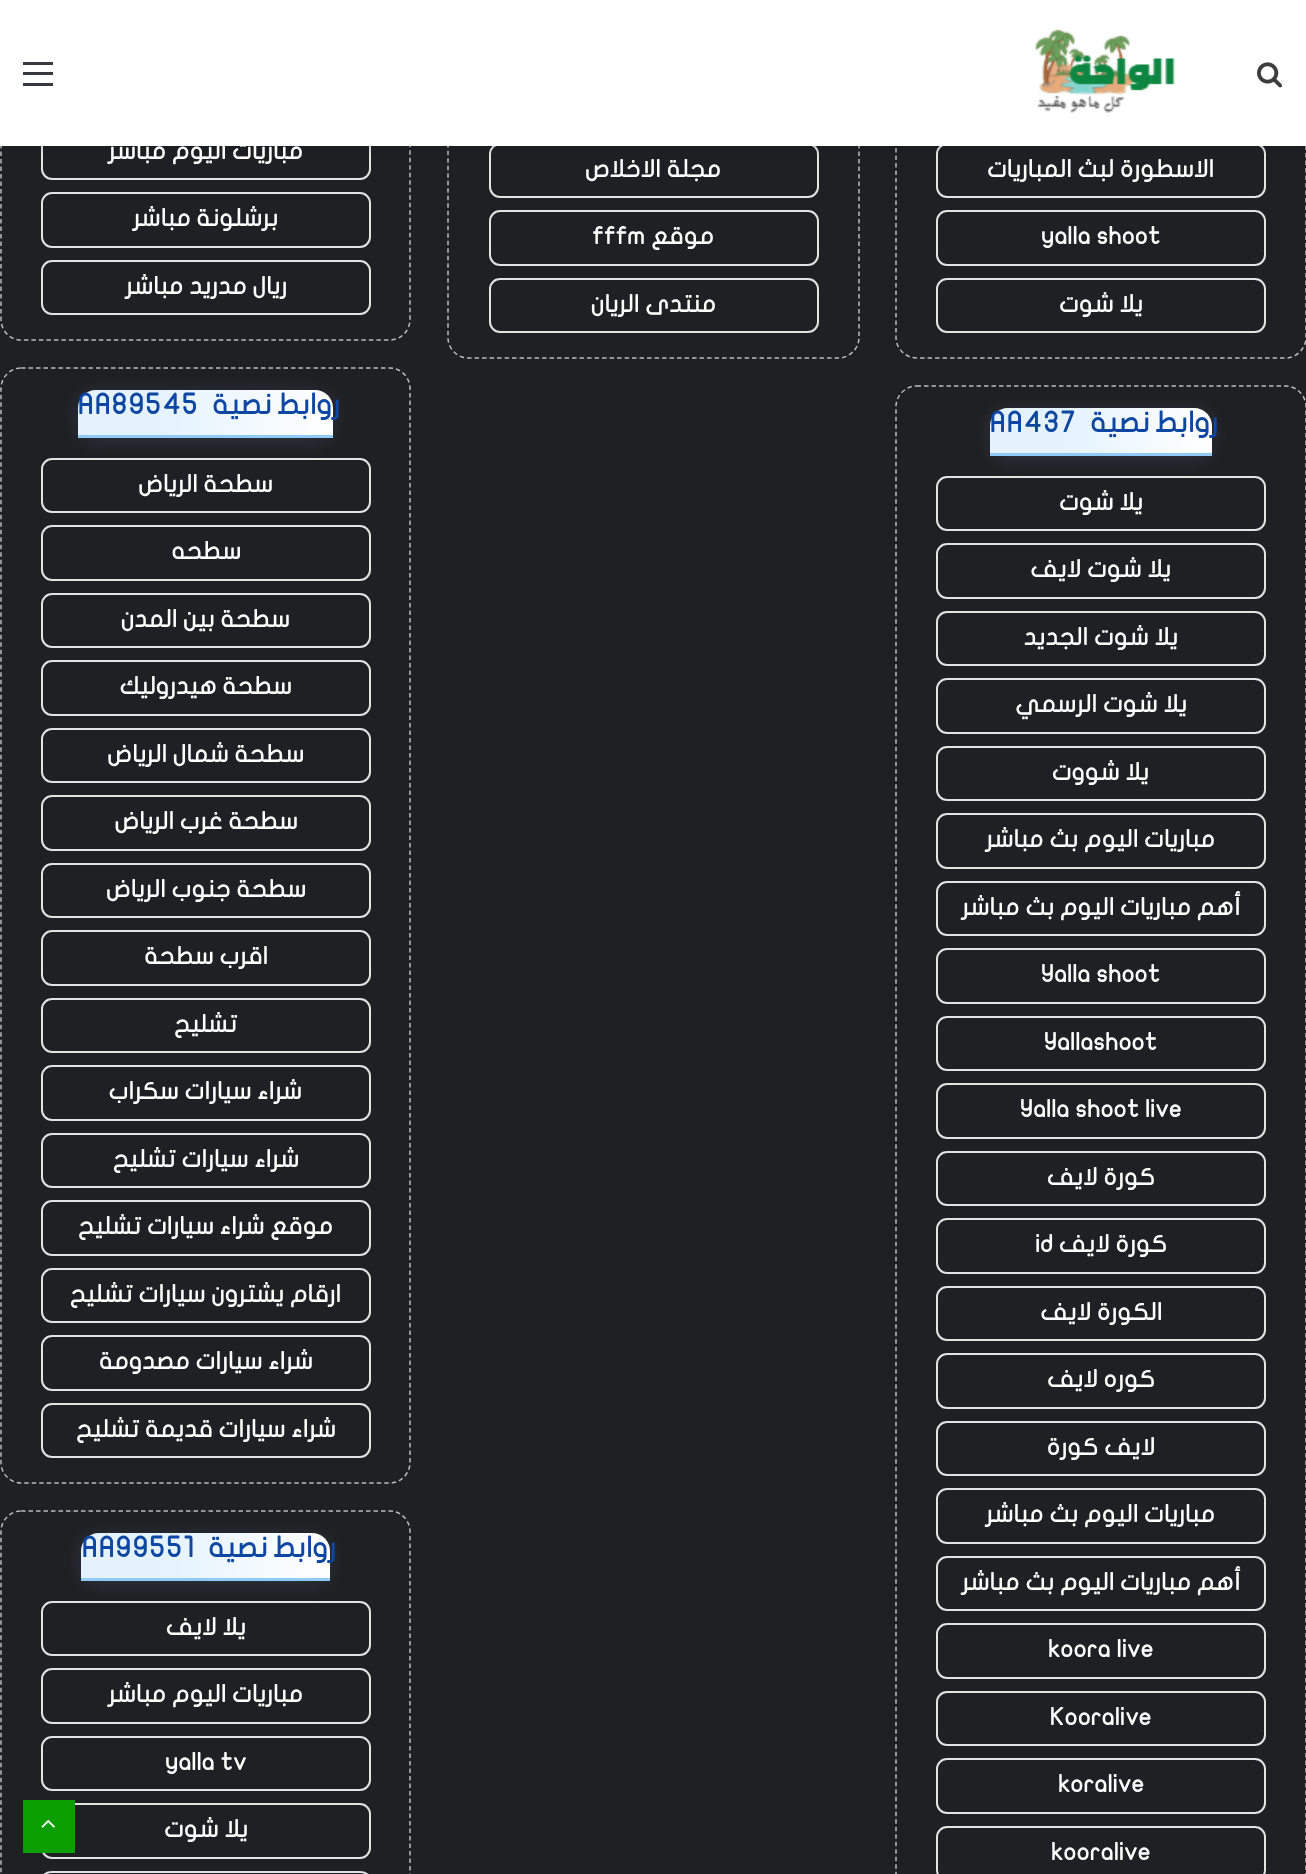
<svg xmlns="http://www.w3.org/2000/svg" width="1306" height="1874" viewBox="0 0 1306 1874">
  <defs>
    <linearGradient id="g1" gradientUnits="userSpaceOnUse" x1="990" y1="431" x2="1212" y2="431"><stop offset="0.3" stop-color="rgb(227,242,253)"/><stop offset="1" stop-color="rgb(255,255,255)"/></linearGradient>
    <linearGradient id="g2" gradientUnits="userSpaceOnUse" x1="78" y1="413" x2="333" y2="413"><stop offset="0.3" stop-color="rgb(227,242,253)"/><stop offset="1" stop-color="rgb(255,255,255)"/></linearGradient>
    <linearGradient id="g3" gradientUnits="userSpaceOnUse" x1="81" y1="1556" x2="330" y2="1556"><stop offset="0.3" stop-color="rgb(227,242,253)"/><stop offset="1" stop-color="rgb(255,255,255)"/></linearGradient>
  </defs>
  <rect width="100%" height="100%" fill="rgb(31,32,36)"/>
  <path d="M916.5-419H1285.5C1296.5-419 1306-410 1306-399V337.5C1306 348.5 1296.5 358 1285.5 358H916.5C905.5 358 896 348.5 896 337.5V-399C896-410 905.5-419 916.5-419Z" fill="none" stroke="rgb(187,187,187)" stroke-width="1.5" stroke-dasharray="4.5 3"/>
  <rect x="937" y="144" width="328" height="53" rx="10" fill="none" stroke="rgb(227,227,227)" stroke-width="2"/>
  <path d="M468-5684H838.5C849.5-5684 859-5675 859-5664V337.5C859 348.5 849.5 358 838.5 358H468C457 358 448 348.5 448 337.5V-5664C448-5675 457-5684 468-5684Z" fill="none" stroke="rgb(187,187,187)" stroke-width="1.5" stroke-dasharray="4.5 3"/>
  <rect x="490" y="144" width="328" height="53" rx="10" fill="none" stroke="rgb(227,227,227)" stroke-width="2"/>
  <path d="M21-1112H390C401-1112 410-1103 410-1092V319.5C410 330.5 401 340 390 340H21C10 340 1 330.5 1 319.5V-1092C1-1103 10-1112 21-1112Z" fill="none" stroke="rgb(187,187,187)" stroke-width="1.5" stroke-dasharray="4.5 3"/>
  <rect x="42" y="126" width="328" height="53" rx="10" fill="none" stroke="rgb(227,227,227)" stroke-width="2"/>
  <rect x="0" y="5" width="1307" height="145" fill="rgba(0,0,0,0.1)" filter="blur(5px)"/>
  <rect x="0" y="0" width="1306" height="146" fill="rgb(255,255,255)"/>
  <image x="1257" y="62" width="26" height="26" href="pic1.png"/>
  <image x="1034" y="29" width="141" height="84" href="pic2.png"/>
  <rect x="23" y="72" width="30" height="3" fill="rgb(55,57,62)"/>
  <rect x="23" y="62" width="30" height="3" fill="rgb(55,57,62)"/>
  <rect x="23" y="83" width="30" height="3" fill="rgb(55,57,62)"/>
  <text x="1214" y="177" font-family="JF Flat" font-size="24" font-weight="bold" direction="rtl" fill="rgb(255,255,255)">الاسطورة لبث المباريات</text>
  <rect x="937" y="211" width="328" height="54" rx="10" fill="none" stroke="rgb(227,227,227)" stroke-width="2"/>
  <text x="1041" y="244" font-family="JF Flat" font-size="24" font-weight="bold" fill="rgb(255,255,255)">yalla shoot</text>
  <rect x="937" y="279" width="328" height="53" rx="10" fill="none" stroke="rgb(227,227,227)" stroke-width="2"/>
  <g font-family="JF Flat" font-size="24" font-weight="bold" direction="rtl" fill="rgb(255,255,255)">
    <text x="1143" y="312">يلا شوت</text>
    <text x="721" y="177">مجلة الاخلاص</text>
  </g>
  <rect x="490" y="211" width="328" height="54" rx="10" fill="none" stroke="rgb(227,227,227)" stroke-width="2"/>
  <text x="714" y="244" font-family="JF Flat" font-size="24" font-weight="bold" direction="rtl" fill="rgb(255,255,255)">موقع</text>
  <text x="592" y="244" font-family="JF Flat" font-size="24" font-weight="bold" fill="rgb(255,255,255)">fffm</text>
  <rect x="490" y="279" width="328" height="53" rx="10" fill="none" stroke="rgb(227,227,227)" stroke-width="2"/>
  <g font-family="JF Flat" font-size="24" font-weight="bold" direction="rtl" fill="rgb(255,255,255)">
    <text x="716" y="312">منتدى الريان</text>
    <text x="303" y="159">مباريات اليوم مباشر</text>
  </g>
  <rect x="42" y="193" width="328" height="54" rx="10" fill="none" stroke="rgb(227,227,227)" stroke-width="2"/>
  <text x="278" y="226" font-family="JF Flat" font-size="24" font-weight="bold" direction="rtl" fill="rgb(255,255,255)">برشلونة مباشر</text>
  <rect x="42" y="261" width="328" height="53" rx="10" fill="none" stroke="rgb(227,227,227)" stroke-width="2"/>
  <text x="287" y="294" font-family="JF Flat" font-size="24" font-weight="bold" direction="rtl" fill="rgb(255,255,255)">ريال مدريد مباشر</text>
  <path d="M916.5 386H1285.5C1296.5 386 1306 395.5 1306 406.5V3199.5C1306 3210.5 1296.5 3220 1285.5 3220H916.5C905.5 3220 896 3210.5 896 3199.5V406.5C896 395.5 905.5 386 916.5 386Z" fill="none" stroke="rgb(187,187,187)" stroke-width="1.5" stroke-dasharray="4.5 3"/>
  <rect x="990" y="411" width="222" height="48" rx="18" fill="rgba(144,202,249,0.13)" filter="blur(9px)"/>
  <path d="M1008 408H1194C1204 408 1212 416 1212 426V456H990V426C990 416 998 408 1008 408Z" fill="url(#g1)"/>
  <rect x="990" y="453" width="222" height="3" fill="rgb(144,202,249)"/>
  <text x="1218" y="432" word-spacing="-2" font-family="JF Flat" font-size="28.5" font-weight="bold" letter-spacing="1.5" direction="rtl" fill="rgb(13,71,161)">روابط نصية</text>
  <text x="990" y="432" font-family="JF Flat" font-size="28.5" font-weight="bold" letter-spacing="1.5" fill="rgb(13,71,161)">AA437</text>
  <rect x="937" y="477" width="328" height="53" rx="10" fill="none" stroke="rgb(227,227,227)" stroke-width="2"/>
  <text x="1143" y="510" font-family="JF Flat" font-size="24" font-weight="bold" direction="rtl" fill="rgb(255,255,255)">يلا شوت</text>
  <rect x="937" y="544" width="328" height="54" rx="10" fill="none" stroke="rgb(227,227,227)" stroke-width="2"/>
  <text x="1171" y="577" font-family="JF Flat" font-size="24" font-weight="bold" direction="rtl" fill="rgb(255,255,255)">يلا شوت لايف</text>
  <rect x="937" y="612" width="328" height="53" rx="10" fill="none" stroke="rgb(227,227,227)" stroke-width="2"/>
  <text x="1178" y="645" font-family="JF Flat" font-size="24" font-weight="bold" direction="rtl" fill="rgb(255,255,255)">يلا شوت الجديد</text>
  <rect x="937" y="679" width="328" height="54" rx="10" fill="none" stroke="rgb(227,227,227)" stroke-width="2"/>
  <text x="1187" y="712" font-family="JF Flat" font-size="24" font-weight="bold" direction="rtl" fill="rgb(255,255,255)">يلا شوت الرسمي</text>
  <rect x="937" y="747" width="328" height="53" rx="10" fill="none" stroke="rgb(227,227,227)" stroke-width="2"/>
  <text x="1149" y="780" font-family="JF Flat" font-size="24" font-weight="bold" direction="rtl" fill="rgb(255,255,255)">يلا شووت</text>
  <rect x="937" y="814" width="328" height="54" rx="10" fill="none" stroke="rgb(227,227,227)" stroke-width="2"/>
  <text x="1215" y="847" font-family="JF Flat" font-size="24" font-weight="bold" direction="rtl" fill="rgb(255,255,255)">مباريات اليوم بث مباشر</text>
  <rect x="937" y="882" width="328" height="53" rx="10" fill="none" stroke="rgb(227,227,227)" stroke-width="2"/>
  <text x="1241" y="915" font-family="JF Flat" font-size="24" font-weight="bold" direction="rtl" fill="rgb(255,255,255)">أهم مباريات اليوم بث مباشر</text>
  <rect x="937" y="949" width="328" height="54" rx="10" fill="none" stroke="rgb(227,227,227)" stroke-width="2"/>
  <text x="1041" y="982" font-family="JF Flat" font-size="24" font-weight="bold" fill="rgb(255,255,255)">Yalla shoot</text>
  <rect x="937" y="1017" width="328" height="53" rx="10" fill="none" stroke="rgb(227,227,227)" stroke-width="2"/>
  <text x="1044" y="1050" font-family="JF Flat" font-size="24" font-weight="bold" fill="rgb(255,255,255)">Yallashoot</text>
  <rect x="937" y="1084" width="328" height="54" rx="10" fill="none" stroke="rgb(227,227,227)" stroke-width="2"/>
  <text x="1020" y="1117" font-family="JF Flat" font-size="24" font-weight="bold" fill="rgb(255,255,255)">Yalla shoot live</text>
  <rect x="937" y="1152" width="328" height="53" rx="10" fill="none" stroke="rgb(227,227,227)" stroke-width="2"/>
  <text x="1155" y="1185" font-family="JF Flat" font-size="24" font-weight="bold" direction="rtl" fill="rgb(255,255,255)">كورة لايف</text>
  <rect x="937" y="1219" width="328" height="54" rx="10" fill="none" stroke="rgb(227,227,227)" stroke-width="2"/>
  <text x="1167" y="1252" font-family="JF Flat" font-size="24" font-weight="bold" direction="rtl" fill="rgb(255,255,255)">كورة لايف</text>
  <text x="1035" y="1252" font-family="JF Flat" font-size="24" font-weight="bold" fill="rgb(255,255,255)">id</text>
  <rect x="937" y="1287" width="328" height="53" rx="10" fill="none" stroke="rgb(227,227,227)" stroke-width="2"/>
  <text x="1162" y="1320" font-family="JF Flat" font-size="24" font-weight="bold" direction="rtl" fill="rgb(255,255,255)">الكورة لايف</text>
  <rect x="937" y="1354" width="328" height="54" rx="10" fill="none" stroke="rgb(227,227,227)" stroke-width="2"/>
  <text x="1155" y="1387" font-family="JF Flat" font-size="24" font-weight="bold" direction="rtl" fill="rgb(255,255,255)">كوره لايف</text>
  <rect x="937" y="1422" width="328" height="53" rx="10" fill="none" stroke="rgb(227,227,227)" stroke-width="2"/>
  <text x="1155" y="1455" font-family="JF Flat" font-size="24" font-weight="bold" direction="rtl" fill="rgb(255,255,255)">لايف كورة</text>
  <rect x="937" y="1489" width="328" height="54" rx="10" fill="none" stroke="rgb(227,227,227)" stroke-width="2"/>
  <text x="1215" y="1522" font-family="JF Flat" font-size="24" font-weight="bold" direction="rtl" fill="rgb(255,255,255)">مباريات اليوم بث مباشر</text>
  <rect x="937" y="1557" width="328" height="53" rx="10" fill="none" stroke="rgb(227,227,227)" stroke-width="2"/>
  <text x="1241" y="1590" font-family="JF Flat" font-size="24" font-weight="bold" direction="rtl" fill="rgb(255,255,255)">أهم مباريات اليوم بث مباشر</text>
  <rect x="937" y="1624" width="328" height="54" rx="10" fill="none" stroke="rgb(227,227,227)" stroke-width="2"/>
  <text x="1048" y="1657" font-family="JF Flat" font-size="24" font-weight="bold" fill="rgb(255,255,255)">koora live</text>
  <rect x="937" y="1692" width="328" height="53" rx="10" fill="none" stroke="rgb(227,227,227)" stroke-width="2"/>
  <text x="1050" y="1725" font-family="JF Flat" font-size="24" font-weight="bold" fill="rgb(255,255,255)">Kooralive</text>
  <rect x="937" y="1759" width="328" height="54" rx="10" fill="none" stroke="rgb(227,227,227)" stroke-width="2"/>
  <text x="1058" y="1792" font-family="JF Flat" font-size="24" font-weight="bold" fill="rgb(255,255,255)">koralive</text>
  <rect x="937" y="1827" width="328" height="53" rx="10" fill="none" stroke="rgb(227,227,227)" stroke-width="2"/>
  <text x="1051" y="1860" font-family="JF Flat" font-size="24" font-weight="bold" fill="rgb(255,255,255)">kooralive</text>
  <path d="M21 368H390C401 368 410 377.5 410 388.5V1462.5C410 1473.5 401 1483 390 1483H21C10 1483 1 1473.5 1 1462.5V388.5C1 377.5 10 368 21 368Z" fill="none" stroke="rgb(187,187,187)" stroke-width="1.5" stroke-dasharray="4.5 3"/>
  <rect x="78" y="393" width="255" height="48" rx="18" fill="rgba(144,202,249,0.13)" filter="blur(9px)"/>
  <path d="M96 390H315C325 390 333 398 333 408V438H78V408C78 398 86 390 96 390Z" fill="url(#g2)"/>
  <rect x="78" y="435" width="255" height="3" fill="rgb(144,202,249)"/>
  <text x="340" y="414" word-spacing="-2" font-family="JF Flat" font-size="28.5" font-weight="bold" letter-spacing="1.5" direction="rtl" fill="rgb(13,71,161)">روابط نصية</text>
  <text x="78" y="414" font-family="JF Flat" font-size="28.5" font-weight="bold" letter-spacing="1.5" fill="rgb(13,71,161)">AA89545</text>
  <rect x="42" y="459" width="328" height="53" rx="10" fill="none" stroke="rgb(227,227,227)" stroke-width="2"/>
  <text x="273" y="492" font-family="JF Flat" font-size="24" font-weight="bold" direction="rtl" fill="rgb(255,255,255)">سطحة الرياض</text>
  <rect x="42" y="526" width="328" height="54" rx="10" fill="none" stroke="rgb(227,227,227)" stroke-width="2"/>
  <text x="241" y="559" font-family="JF Flat" font-size="24" font-weight="bold" direction="rtl" fill="rgb(255,255,255)">سطحه</text>
  <rect x="42" y="594" width="328" height="53" rx="10" fill="none" stroke="rgb(227,227,227)" stroke-width="2"/>
  <text x="290" y="627" font-family="JF Flat" font-size="24" font-weight="bold" direction="rtl" fill="rgb(255,255,255)">سطحة بين المدن</text>
  <rect x="42" y="661" width="328" height="54" rx="10" fill="none" stroke="rgb(227,227,227)" stroke-width="2"/>
  <text x="292" y="694" font-family="JF Flat" font-size="24" font-weight="bold" direction="rtl" fill="rgb(255,255,255)">سطحة هيدروليك</text>
  <rect x="42" y="729" width="328" height="53" rx="10" fill="none" stroke="rgb(227,227,227)" stroke-width="2"/>
  <text x="304" y="762" font-family="JF Flat" font-size="24" font-weight="bold" direction="rtl" fill="rgb(255,255,255)">سطحة شمال الرياض</text>
  <rect x="42" y="796" width="328" height="54" rx="10" fill="none" stroke="rgb(227,227,227)" stroke-width="2"/>
  <text x="298" y="829" font-family="JF Flat" font-size="24" font-weight="bold" direction="rtl" fill="rgb(255,255,255)">سطحة غرب الرياض</text>
  <rect x="42" y="864" width="328" height="53" rx="10" fill="none" stroke="rgb(227,227,227)" stroke-width="2"/>
  <text x="306" y="897" font-family="JF Flat" font-size="24" font-weight="bold" direction="rtl" fill="rgb(255,255,255)">سطحة جنوب الرياض</text>
  <rect x="42" y="931" width="328" height="54" rx="10" fill="none" stroke="rgb(227,227,227)" stroke-width="2"/>
  <text x="268" y="964" font-family="JF Flat" font-size="24" font-weight="bold" direction="rtl" fill="rgb(255,255,255)">اقرب سطحة</text>
  <rect x="42" y="999" width="328" height="53" rx="10" fill="none" stroke="rgb(227,227,227)" stroke-width="2"/>
  <text x="237" y="1032" font-family="JF Flat" font-size="24" font-weight="bold" direction="rtl" fill="rgb(255,255,255)">تشليح</text>
  <rect x="42" y="1066" width="328" height="54" rx="10" fill="none" stroke="rgb(227,227,227)" stroke-width="2"/>
  <text x="302" y="1099" font-family="JF Flat" font-size="24" font-weight="bold" direction="rtl" fill="rgb(255,255,255)">شراء سيارات سكراب</text>
  <rect x="42" y="1134" width="328" height="53" rx="10" fill="none" stroke="rgb(227,227,227)" stroke-width="2"/>
  <text x="299" y="1167" font-family="JF Flat" font-size="24" font-weight="bold" direction="rtl" fill="rgb(255,255,255)">شراء سيارات تشليح</text>
  <rect x="42" y="1201" width="328" height="54" rx="10" fill="none" stroke="rgb(227,227,227)" stroke-width="2"/>
  <text x="333" y="1234" font-family="JF Flat" font-size="24" font-weight="bold" direction="rtl" fill="rgb(255,255,255)">موقع شراء سيارات تشليح</text>
  <rect x="42" y="1269" width="328" height="53" rx="10" fill="none" stroke="rgb(227,227,227)" stroke-width="2"/>
  <text x="341" y="1302" font-family="JF Flat" font-size="24" font-weight="bold" direction="rtl" fill="rgb(255,255,255)">ارقام يشترون سيارات تشليح</text>
  <rect x="42" y="1336" width="328" height="54" rx="10" fill="none" stroke="rgb(227,227,227)" stroke-width="2"/>
  <text x="313" y="1369" font-family="JF Flat" font-size="24" font-weight="bold" direction="rtl" fill="rgb(255,255,255)">شراء سيارات مصدومة</text>
  <rect x="42" y="1404" width="328" height="53" rx="10" fill="none" stroke="rgb(227,227,227)" stroke-width="2"/>
  <text x="336" y="1437" font-family="JF Flat" font-size="24" font-weight="bold" direction="rtl" fill="rgb(255,255,255)">شراء سيارات قديمة تشليح</text>
  <path d="M21 1511H390C401 1511 410 1520.5 410 1531.5V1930.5C410 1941.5 401 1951 390 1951H21C10 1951 1 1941.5 1 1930.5V1531.5C1 1520.5 10 1511 21 1511Z" fill="none" stroke="rgb(187,187,187)" stroke-width="1.5" stroke-dasharray="4.5 3"/>
  <rect x="81" y="1536" width="249" height="48" rx="18" fill="rgba(144,202,249,0.13)" filter="blur(9px)"/>
  <path d="M99 1533H312C322 1533 330 1541 330 1551V1581H81V1551C81 1541 89 1533 99 1533Z" fill="url(#g3)"/>
  <rect x="81" y="1578" width="249" height="3" fill="rgb(144,202,249)"/>
  <text x="336" y="1557" word-spacing="-2" font-family="JF Flat" font-size="28.5" font-weight="bold" letter-spacing="1.5" direction="rtl" fill="rgb(13,71,161)">روابط نصية</text>
  <text x="82" y="1557" font-family="JF Flat" font-size="28.5" font-weight="bold" letter-spacing="1.5" fill="rgb(13,71,161)">AA99551</text>
  <rect x="42" y="1602" width="328" height="53" rx="10" fill="none" stroke="rgb(227,227,227)" stroke-width="2"/>
  <text x="246" y="1635" font-family="JF Flat" font-size="24" font-weight="bold" direction="rtl" fill="rgb(255,255,255)">يلا لايف</text>
  <rect x="42" y="1669" width="328" height="54" rx="10" fill="none" stroke="rgb(227,227,227)" stroke-width="2"/>
  <text x="303" y="1702" font-family="JF Flat" font-size="24" font-weight="bold" direction="rtl" fill="rgb(255,255,255)">مباريات اليوم مباشر</text>
  <rect x="42" y="1737" width="328" height="53" rx="10" fill="none" stroke="rgb(227,227,227)" stroke-width="2"/>
  <text x="165" y="1770" font-family="JF Flat" font-size="24" font-weight="bold" fill="rgb(255,255,255)">yalla tv</text>
  <rect x="42" y="1804" width="328" height="54" rx="10" fill="none" stroke="rgb(227,227,227)" stroke-width="2"/>
  <text x="248" y="1837" font-family="JF Flat" font-size="24" font-weight="bold" direction="rtl" fill="rgb(255,255,255)">يلا شوت</text>
  <rect x="42" y="1872" width="328" height="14" rx="10" fill="none" stroke="rgb(227,227,227)" stroke-width="2"/>
  <rect x="23" y="1800" width="52" height="53" fill="rgb(10,158,1)"/>
  <image x="41" y="1819" width="14" height="9" href="pic3.png"/>
</svg>
